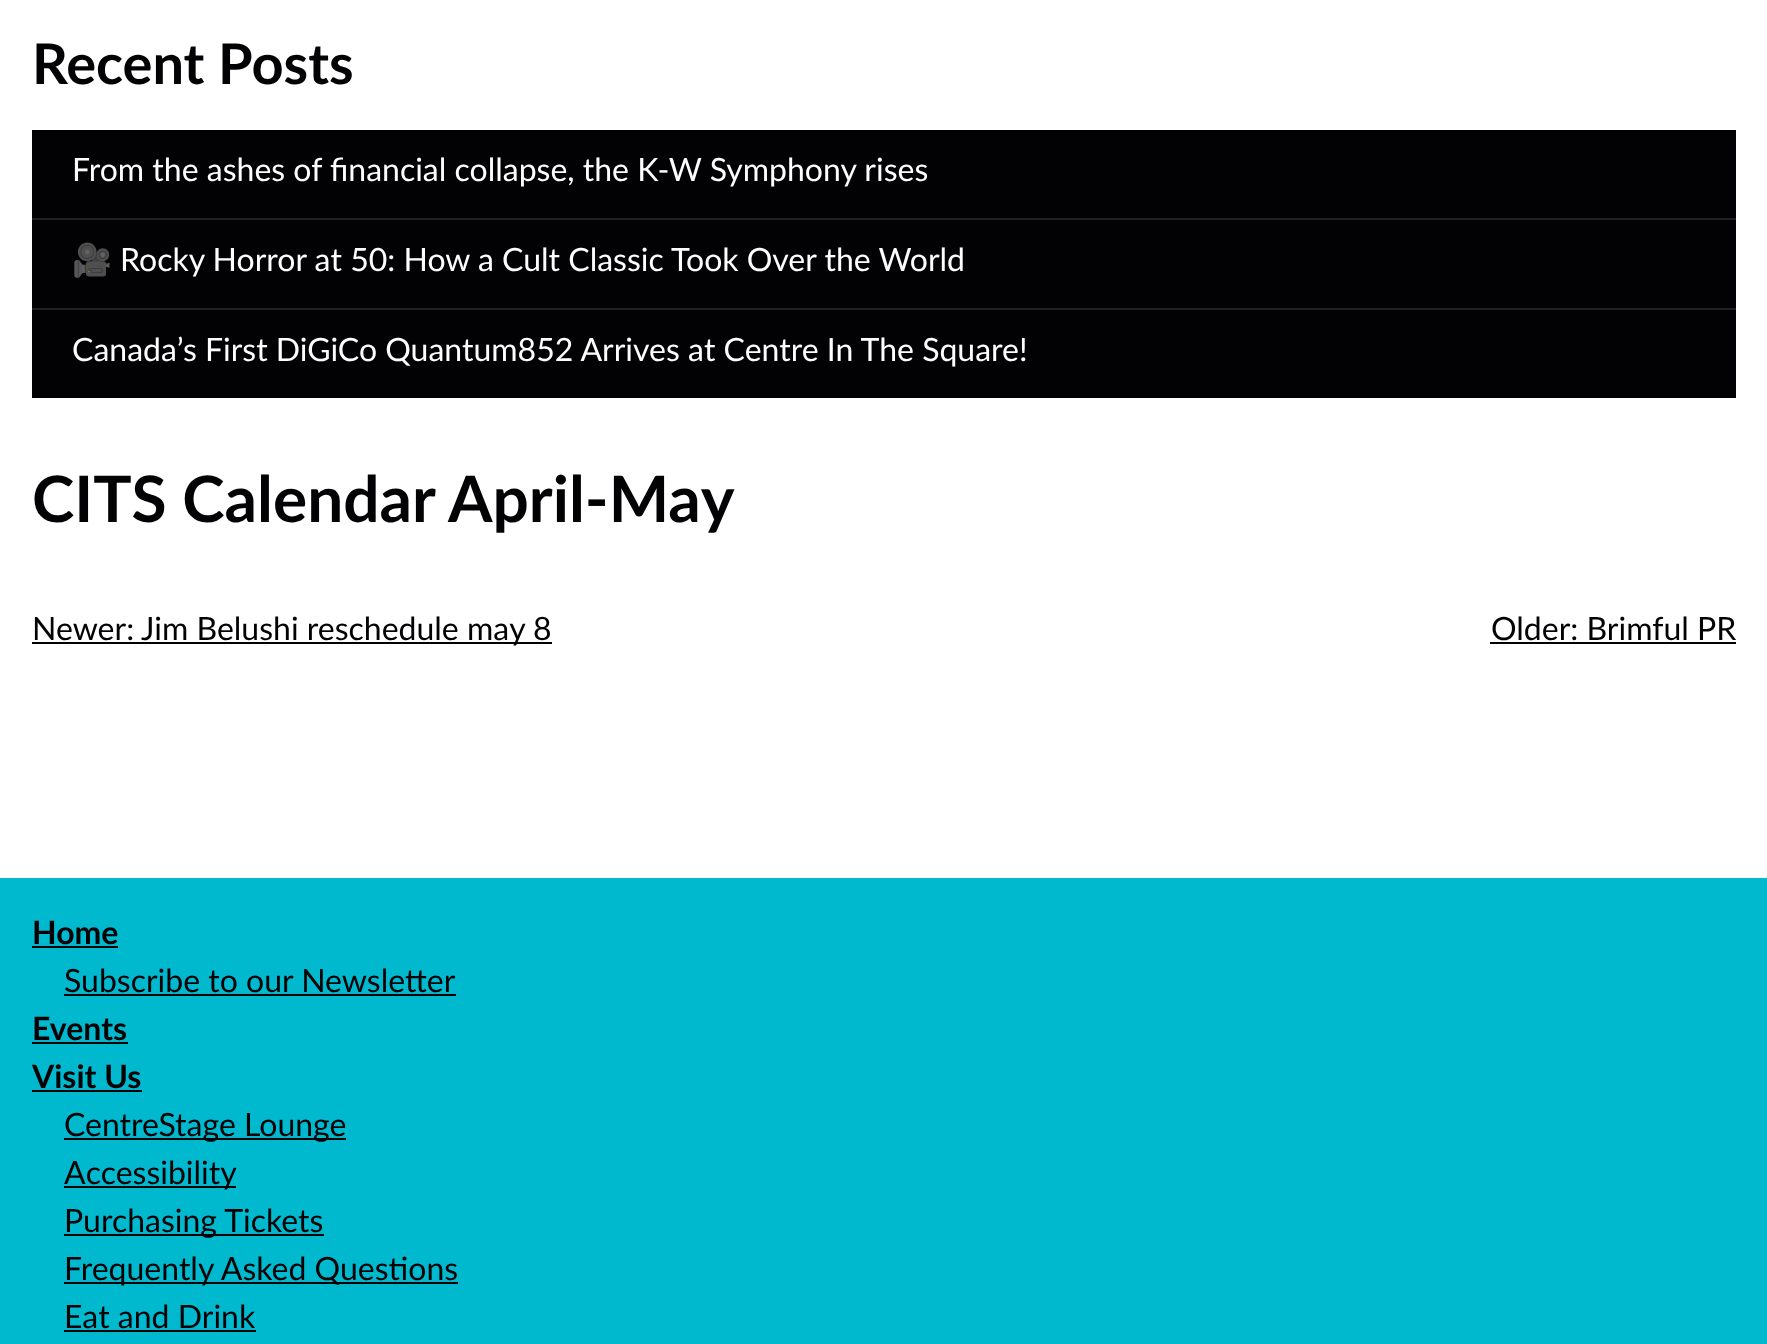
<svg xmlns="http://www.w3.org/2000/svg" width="1767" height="1344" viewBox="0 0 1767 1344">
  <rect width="100%" height="100%" fill="rgb(255,255,255)"/>
  <text x="32" y="84" font-family="Lato" font-size="56" font-weight="bold" fill="rgb(2,2,4)">Recent Posts</text>
  <rect x="32" y="130" width="1704" height="88" fill="rgb(2,2,4)"/>
  <text x="72" y="181" font-family="Lato" font-size="32" fill="rgb(254,254,255)">From the ashes of financial collapse, the K-W Symphony rises</text>
  <rect x="32" y="220" width="1704" height="88" fill="rgb(2,2,4)"/>
  <rect x="32" y="218" width="1704" height="2" fill="rgb(29,31,32)"/>
  <text x="72" y="271" font-family="Noto Color Emoji" font-size="32" fill="rgb(254,254,255)">🎥</text>
  <text x="120" y="271" font-family="Lato" font-size="32" fill="rgb(254,254,255)">Rocky Horror at 50: How a Cult Classic Took Over the World</text>
  <rect x="32" y="310" width="1704" height="88" fill="rgb(2,2,4)"/>
  <rect x="32" y="308" width="1704" height="2" fill="rgb(29,31,32)"/>
  <text x="72" y="361" font-family="Lato" font-size="32" fill="rgb(254,254,255)">Canada’s First DiGiCo Quantum852 Arrives at Centre In The Square!</text>
  <text x="32" y="522" font-family="Lato" font-size="64" font-weight="bold" fill="rgb(2,2,4)">CITS Calendar April-May</text>
  <text x="32" y="640" font-family="Lato" font-size="32" fill="rgb(2,2,4)">Newer:</text>
  <rect x="32" y="642" width="520" height="2" fill="rgb(2,2,4)"/>
  <g font-family="Lato" font-size="32" fill="rgb(2,2,4)">
    <text x="141" y="640">Jim Belushi reschedule may 8</text>
    <text x="1491" y="640">Older: Brimful PR</text>
  </g>
  <rect x="1490" y="642" width="246" height="2" fill="rgb(2,2,4)"/>
  <rect x="0" y="878" width="1767" height="466" fill="rgb(0,185,207)"/>
  <text x="32" y="944" font-family="Lato" font-size="32" font-weight="bold" fill="rgb(2,2,4)">Home</text>
  <rect x="32" y="946" width="86" height="2" fill="rgb(2,2,4)"/>
  <text x="64" y="992" font-family="Lato" font-size="32" fill="rgb(2,2,4)">Subscribe to our Newsletter</text>
  <rect x="64" y="994" width="392" height="2" fill="rgb(2,2,4)"/>
  <text x="32" y="1040" font-family="Lato" font-size="32" font-weight="bold" fill="rgb(2,2,4)">Events</text>
  <rect x="32" y="1042" width="96" height="2" fill="rgb(2,2,4)"/>
  <text x="32" y="1088" font-family="Lato" font-size="32" font-weight="bold" fill="rgb(2,2,4)">Visit Us</text>
  <rect x="32" y="1090" width="110" height="2" fill="rgb(2,2,4)"/>
  <rect x="64" y="1138" width="282" height="2" fill="rgb(2,2,4)"/>
  <text x="64" y="1136" font-family="Lato" font-size="32" fill="rgb(2,2,4)">CentreStage Lounge</text>
  <rect x="64" y="1186" width="172" height="2" fill="rgb(2,2,4)"/>
  <text x="64" y="1184" font-family="Lato" font-size="32" fill="rgb(2,2,4)">Accessibility</text>
  <rect x="64" y="1234" width="260" height="2" fill="rgb(2,2,4)"/>
  <text x="64" y="1232" font-family="Lato" font-size="32" fill="rgb(2,2,4)">Purchasing Tickets</text>
  <rect x="64" y="1282" width="394" height="2" fill="rgb(2,2,4)"/>
  <g font-family="Lato" font-size="32" fill="rgb(2,2,4)">
    <text>
      <tspan x="64" y="1280">Frequently Asked Questions</tspan>
      <tspan x="64" y="1328">Eat and Drink</tspan>
    </text>
  </g>
  <rect x="64" y="1330" width="192" height="2" fill="rgb(2,2,4)"/>
</svg>
